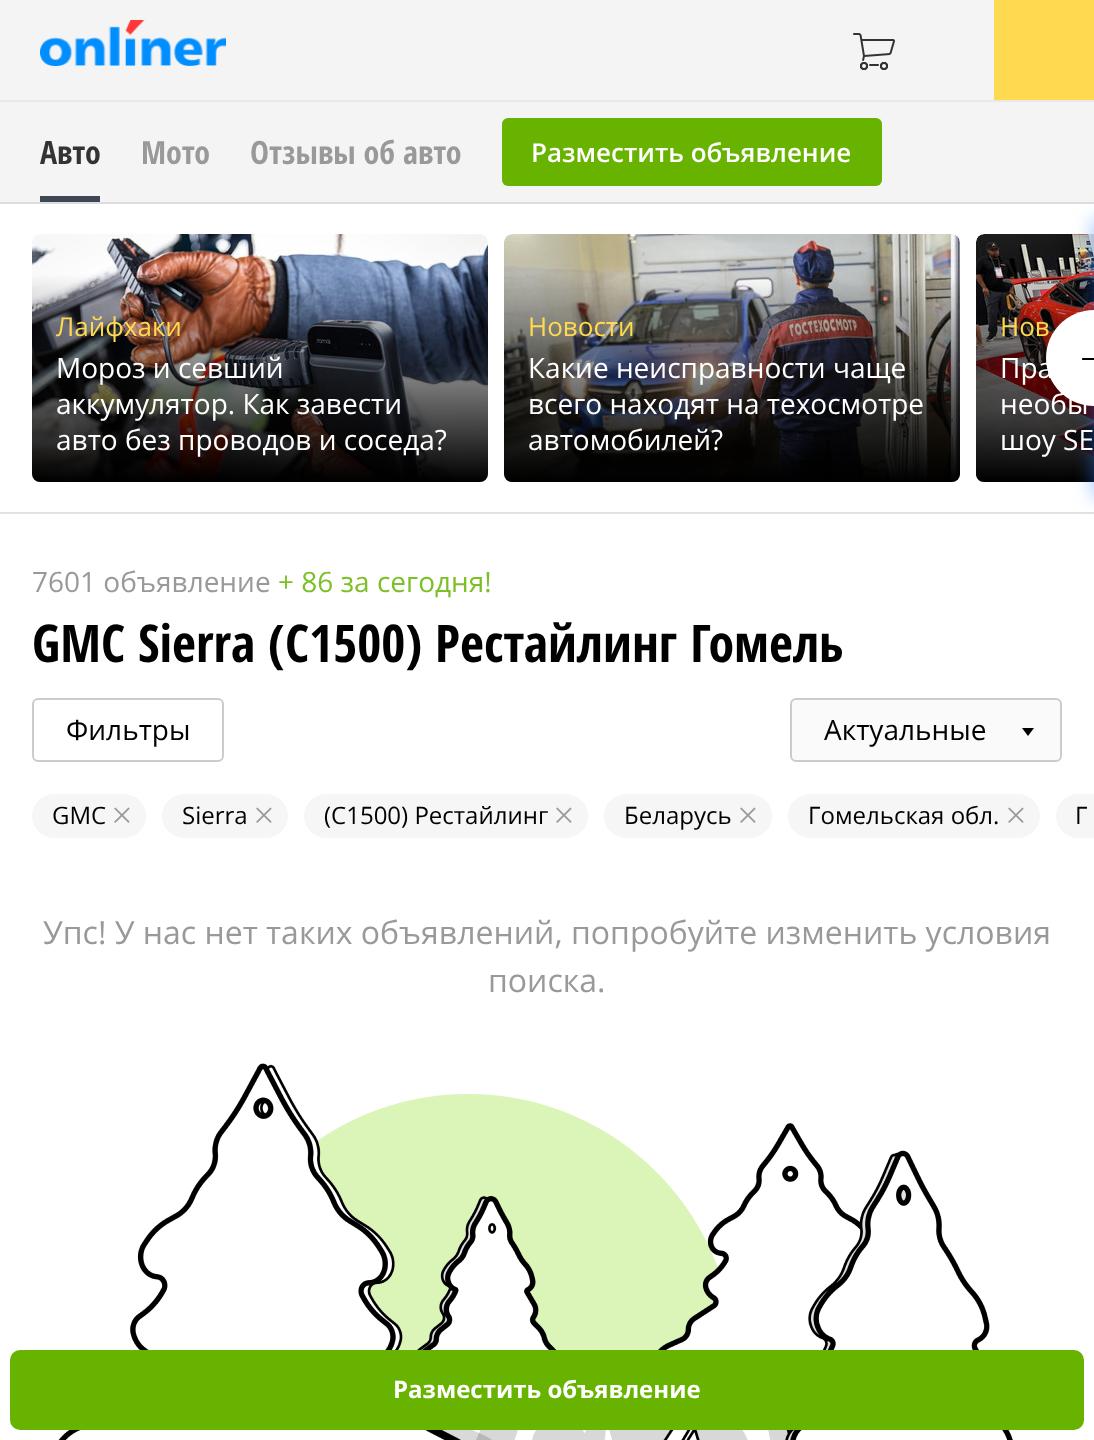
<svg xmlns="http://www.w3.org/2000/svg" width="1094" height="1440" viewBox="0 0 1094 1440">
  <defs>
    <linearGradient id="g1" gradientUnits="userSpaceOnUse" x1="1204" y1="234" x2="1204" y2="482"><stop offset="0" stop-color="rgb(0,0,0)" stop-opacity="0"/><stop offset="0.16" stop-color="rgb(0,0,0)" stop-opacity="0"/><stop offset="1" stop-color="rgb(0,0,0)"/></linearGradient>
    <linearGradient id="g2" gradientUnits="userSpaceOnUse" x1="260" y1="234" x2="260" y2="482"><stop offset="0" stop-color="rgb(0,0,0)" stop-opacity="0"/><stop offset="0.16" stop-color="rgb(0,0,0)" stop-opacity="0"/><stop offset="1" stop-color="rgb(0,0,0)"/></linearGradient>
    <clipPath id="clip1"><rect x="56" y="310" width="408" height="32"/></clipPath>
    <linearGradient id="g3" gradientUnits="userSpaceOnUse" x1="732" y1="234" x2="732" y2="482"><stop offset="0" stop-color="rgb(0,0,0)" stop-opacity="0"/><stop offset="0.16" stop-color="rgb(0,0,0)" stop-opacity="0"/><stop offset="1" stop-color="rgb(0,0,0)"/></linearGradient>
  </defs>
  <rect width="100%" height="100%" fill="rgb(255,255,255)"/>
  <rect x="0" y="0" width="994" height="100" fill="rgb(244,244,244)"/>
  <rect x="0" y="100" width="1094" height="2" fill="rgb(232,232,232)"/>
  <image x="40" y="20" width="186" height="46" href="pic1.png"/>
  <image x="853" y="33" width="42" height="37" href="pic2.png"/>
  <rect x="994" y="0" width="100" height="100" fill="rgb(255,218,80)"/>
  <rect x="0" y="102" width="1094" height="100" fill="rgb(244,244,244)"/>
  <rect x="0" y="202" width="1094" height="2" fill="rgb(221,221,221)"/>
  <text x="40" y="164" font-family="Open Sans Condensed" font-size="32" font-weight="bold" fill="rgb(51,51,51)">Авто</text>
  <rect x="40" y="196" width="60" height="6" fill="rgb(62,71,83)"/>
  <g font-family="Open Sans Condensed" font-size="32" font-weight="bold" fill="rgb(153,153,153)">
    <text x="141" y="164">Мото</text>
    <text x="250" y="164">Отзывы об авто</text>
  </g>
  <rect x="502" y="118" width="380" height="68" rx="6" fill="rgb(104,179,0)"/>
  <text x="531" y="162" font-family="Open Sans" font-size="26" font-weight="600" fill="rgb(255,255,255)">Разместить объявление</text>
  <image x="58" y="1063" width="955" height="377" href="pic8.png"/>
  <rect x="10" y="1350" width="1074" height="80" rx="10" fill="rgb(104,179,0)"/>
  <text x="393" y="1398" font-family="Open Sans" font-size="24" font-weight="bold" fill="rgb(255,255,255)">Разместить объявление</text>
  <rect x="0" y="512" width="1094" height="2" fill="rgb(226,226,226)"/>
  <image x="976" y="234" width="118" height="248" href="pic6.png"/>
  <path d="M984 234H1094V482H984C979.5 482 976 478.5 976 474V242C976 237.5 979.5 234 984 234Z" fill="url(#g1)"/>
  <rect x="1046" y="314" width="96" height="96" rx="48" fill="rgba(0,0,0,0.15)" filter="blur(15px)"/>
  <rect x="1094" y="220" width="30" height="276" fill="rgba(41,121,255,0.5)" filter="blur(10px)"/>
  <text x="1000" y="336" font-family="Open Sans" font-size="26" fill="rgb(255,218,80)">Нов</text>
  <path d="M1094 310V406C1067.5 406 1046 384.5 1046 358C1046 331.5 1067.5 310 1094 310Z" fill="rgb(255,255,255)"/>
  <image x="1082" y="358" width="12" height="2" href="pic3.png"/>
  <image x="32" y="234" width="456" height="248" href="pic4.png"/>
  <rect x="32" y="234" width="456" height="248" rx="8" fill="url(#g2)"/>
  <g clip-path="url(#clip1)">
    <text x="56" y="336" font-family="Open Sans" font-size="26" fill="rgb(255,218,80)">Лайфхаки</text>
  </g>
  <g font-family="Open Sans" font-size="28" fill="rgb(255,255,255)">
    <text>
      <tspan x="56" y="378">Мороз и севший</tspan>
      <tspan x="56" y="414">аккумулятор. Как завести</tspan>
      <tspan x="56" y="450">авто без проводов и соседа?</tspan>
    </text>
  </g>
  <image x="504" y="234" width="456" height="248" href="pic5.png"/>
  <rect x="504" y="234" width="456" height="248" rx="8" fill="url(#g3)"/>
  <text x="528" y="336" font-family="Open Sans" font-size="26" fill="rgb(255,218,80)">Новости</text>
  <g font-family="Open Sans" font-size="28" fill="rgb(255,255,255)">
    <text>
      <tspan x="528" y="378">Какие неисправности чаще</tspan>
      <tspan x="528" y="414">всего находят на техосмотре</tspan>
      <tspan x="528" y="450">автомобилей?</tspan>
    </text>
    <text>
      <tspan x="1000" y="378">Пра</tspan>
      <tspan x="1000" y="414">необы</tspan>
      <tspan x="1000" y="450">шоу SE</tspan>
    </text>
  </g>
  <text x="32" y="592" font-family="Open Sans" font-size="28" fill="rgb(153,153,153)">7601 объявление</text>
  <text x="278" y="592" font-family="Open Sans" font-size="28" fill="rgb(125,191,38)">+ 86 за сегодня!</text>
  <text x="32" y="662" font-family="Open Sans Condensed" font-size="52" font-weight="bold" fill="rgb(0,0,0)">GMC Sierra (C1500) Рестайлинг Гомель</text>
  <rect x="33" y="699" width="190" height="62" rx="5" fill="none" stroke="rgb(204,204,204)" stroke-width="2"/>
  <text x="66" y="740" font-family="Open Sans" font-size="28" fill="rgb(0,0,0)">Фильтры</text>
  <rect x="791" y="699" width="270" height="62" rx="5" fill="rgb(250,250,250)" stroke="rgb(204,204,204)" stroke-width="2"/>
  <text x="824" y="740" font-family="Open Sans" font-size="28" fill="rgb(0,0,0)">Актуальные</text>
  <path d="M1022 728H1034L1028 736Z" fill="rgb(0,0,0)"/>
  <rect x="32" y="794" width="114" height="44" rx="22" fill="rgb(246,246,246)"/>
  <text x="52" y="824" font-family="Open Sans" font-size="24" fill="rgb(0,0,0)">GMC</text>
  <image x="114" y="807" width="16" height="16" href="pic7.png"/>
  <rect x="162" y="794" width="126" height="44" rx="22" fill="rgb(246,246,246)"/>
  <text x="182" y="824" font-family="Open Sans" font-size="24" fill="rgb(0,0,0)">Sierra</text>
  <image x="256" y="807" width="16" height="16" href="pic7.png"/>
  <rect x="304" y="794" width="284" height="44" rx="22" fill="rgb(246,246,246)"/>
  <text x="324" y="824" font-family="Open Sans" font-size="24" fill="rgb(0,0,0)">(C1500) Рестайлинг</text>
  <image x="556" y="807" width="16" height="16" href="pic7.png"/>
  <rect x="604" y="794" width="168" height="44" rx="22" fill="rgb(246,246,246)"/>
  <text x="624" y="824" font-family="Open Sans" font-size="24" fill="rgb(0,0,0)">Беларусь</text>
  <image x="740" y="807" width="16" height="16" href="pic7.png"/>
  <rect x="788" y="794" width="252" height="44" rx="22" fill="rgb(246,246,246)"/>
  <text x="808" y="824" font-family="Open Sans" font-size="24" fill="rgb(0,0,0)">Гомельская обл.</text>
  <image x="1008" y="807" width="16" height="16" href="pic7.png"/>
  <path d="M1078 794H1094V838H1078C1066 838 1056 828 1056 816C1056 804 1066 794 1078 794Z" fill="rgb(246,246,246)"/>
  <text x="1075" y="824" font-family="Open Sans" font-size="24" fill="rgb(0,0,0)">Г</text>
  <g font-family="Open Sans" font-size="32" fill="rgb(153,153,153)">
    <text x="43" y="944">Упс! У нас нет таких объявлений, попробуйте изменить условия</text>
    <text x="488" y="992">поиска.</text>
  </g>
</svg>
